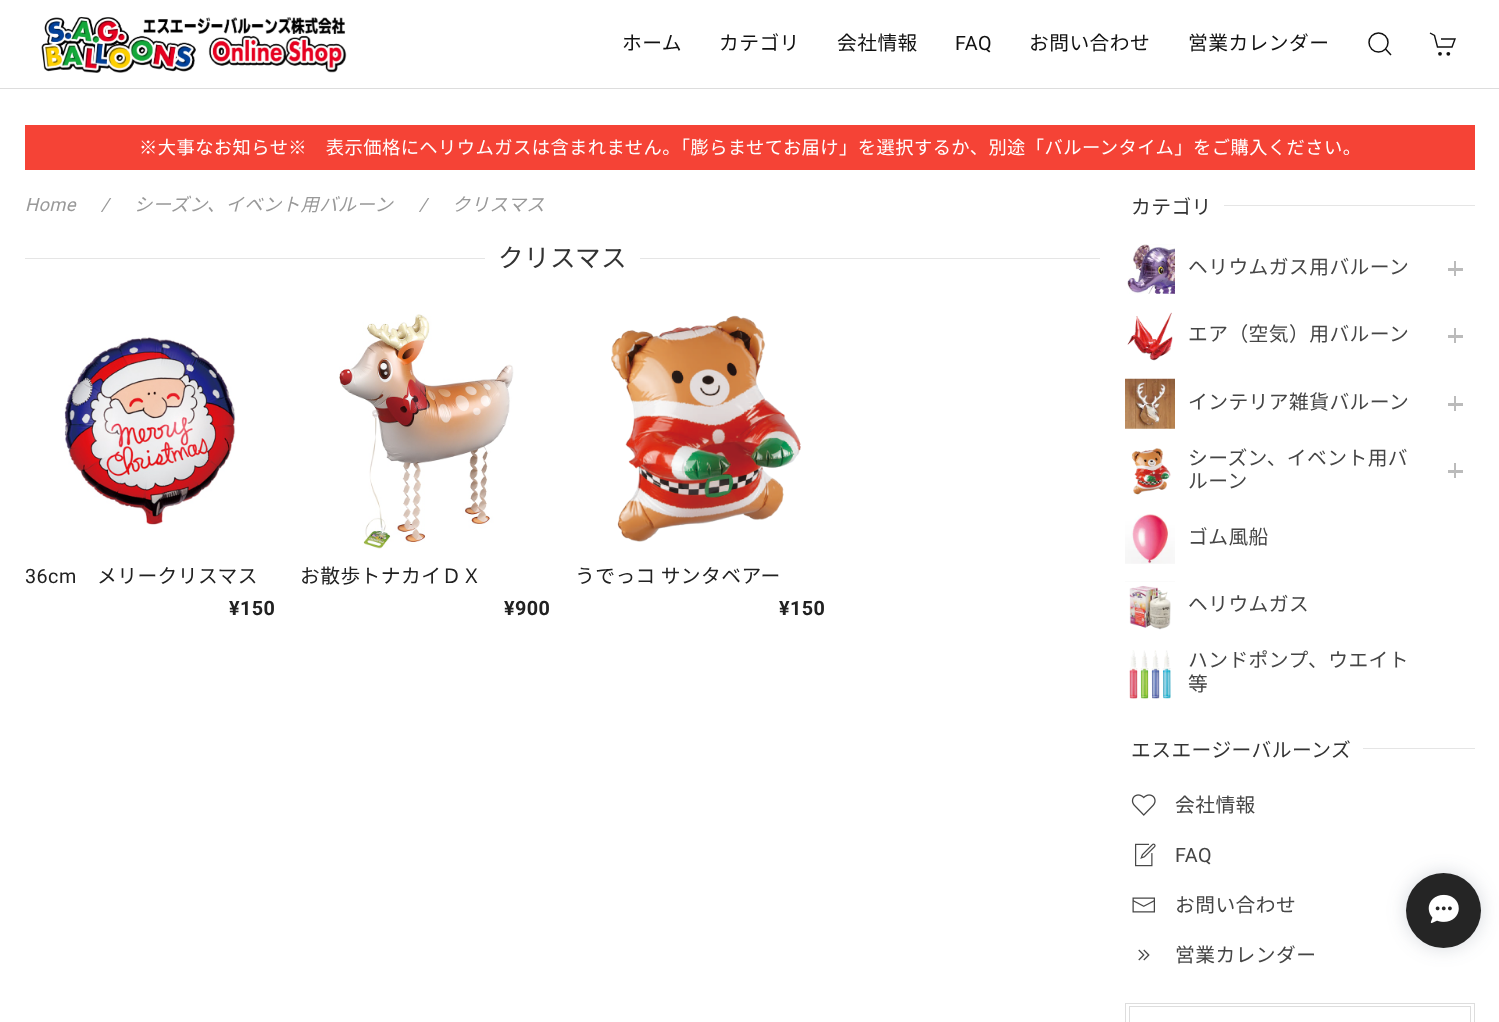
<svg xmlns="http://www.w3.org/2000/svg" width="1499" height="1022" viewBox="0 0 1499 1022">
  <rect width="100%" height="100%" fill="rgb(255,255,255)"/>
  <rect x="0" y="88" width="1499" height="1" fill="rgb(221,221,221)"/>
  <image x="41" y="16" width="306" height="57" href="pic1.png"/>
  <g font-family="Noto Sans JP" font-size="19.75" letter-spacing="0.45" fill="rgb(17,17,17)">
    <text x="622" y="50">ホーム</text>
    <text x="719" y="50">カテゴリ</text>
    <text x="837" y="50">会社情報</text>
  </g>
  <text x="955" y="50" font-family="Roboto" font-size="19.75" letter-spacing="0.45" fill="rgb(17,17,17)">FAQ</text>
  <g font-family="Noto Sans JP" font-size="19.75" letter-spacing="0.45" fill="rgb(17,17,17)">
    <text x="1029" y="50">お問い合わせ</text>
    <text x="1188" y="50">営業カレンダー</text>
  </g>
  <circle cx="1378.5" cy="42.5" r="9.5" fill="none" stroke="rgb(17,17,17)" stroke-width="1.5"/>
  <path d="M1385.5 49L1391 55Z" fill="none" stroke="rgb(17,17,17)" stroke-width="1.5"/>
  <path d="M1430 33L1434.5 35.5L1437.5 47H1452L1455 39H1441" fill="none" stroke="rgb(17,17,17)" stroke-width="1.4"/>
  <circle cx="1440" cy="53.8" r="1.9" fill="rgb(17,17,17)"/>
  <circle cx="1448.3" cy="53.8" r="1.9" fill="rgb(17,17,17)"/>
  <rect x="25" y="125" width="1450" height="45" fill="rgb(245,67,54)"/>
  <text x="139" y="154" font-family="Noto Sans JP" font-size="18.28" letter-spacing="0.45" fill="rgb(255,255,255)">※大事なお知らせ※　表示価格にヘリウムガスは含まれません。「膨らませてお届け」を選択するか、別途「バルーンタイム」をご購入ください。</text>
  <g font-family="Roboto" font-size="18.28" font-style="italic" letter-spacing="0.45" fill="rgb(153,153,153)">
    <text x="25" y="211">Home</text>
    <text x="101" y="211">/</text>
  </g>
  <text x="134" y="211" font-family="Noto Sans JP" font-size="18.28" font-style="italic" letter-spacing="0.45" fill="rgb(153,153,153)">シーズン、イベント用バルーン</text>
  <text x="419" y="211" font-family="Roboto" font-size="18.28" font-style="italic" letter-spacing="0.45" fill="rgb(153,153,153)">/</text>
  <text x="452" y="211" font-family="Noto Sans JP" font-size="18.28" font-style="italic" letter-spacing="0.45" fill="rgb(153,153,153)">クリスマス</text>
  <rect x="25" y="258" width="460" height="1" fill="rgb(229,229,229)"/>
  <text x="498" y="267" font-family="Noto Sans JP" font-size="25.5" letter-spacing="0.45" fill="rgb(51,51,51)">クリスマス</text>
  <rect x="640" y="258" width="460" height="1" fill="rgb(229,229,229)"/>
  <image x="64" y="337" width="172" height="188" href="pic2.png"/>
  <text x="25" y="583" font-family="Roboto" font-size="19.75" letter-spacing="0.45" fill="rgb(33,33,33)">36cm</text>
  <text x="97" y="583" font-family="Noto Sans JP" font-size="19.75" letter-spacing="0.45" fill="rgb(33,33,33)">メリークリスマス</text>
  <text x="229" y="615" font-family="Roboto" font-size="19.75" font-weight="bold" letter-spacing="0.45" fill="rgb(33,33,33)">¥150</text>
  <image x="339" y="314" width="175" height="235" href="pic3.png"/>
  <text x="300" y="583" font-family="Noto Sans JP" font-size="19.75" letter-spacing="0.45" fill="rgb(33,33,33)">お散歩トナカイＤＸ</text>
  <text x="504" y="615" font-family="Roboto" font-size="19.75" font-weight="bold" letter-spacing="0.45" fill="rgb(33,33,33)">¥900</text>
  <image x="611" y="315" width="190" height="227" href="pic4.png"/>
  <text x="575" y="583" font-family="Noto Sans JP" font-size="19.75" letter-spacing="0.45" fill="rgb(33,33,33)">うでっコ サンタベアー</text>
  <text x="779" y="615" font-family="Roboto" font-size="19.75" font-weight="bold" letter-spacing="0.45" fill="rgb(33,33,33)">¥150</text>
  <text x="1131" y="214" font-family="Noto Sans JP" font-size="19.75" letter-spacing="0.45" fill="rgb(51,51,51)">カテゴリ</text>
  <rect x="1224" y="205" width="251" height="1" fill="rgb(229,229,229)"/>
  <image x="1127" y="244" width="48" height="50" href="pic5.png"/>
  <text x="1188" y="274" font-family="Noto Sans JP" font-size="19.75" letter-spacing="0.45" fill="rgb(69,69,69)">ヘリウムガス用バルーン</text>
  <rect x="1448" y="268" width="15" height="3" fill="rgb(187,187,187)"/>
  <rect x="1454" y="261" width="2" height="15" fill="rgb(187,187,187)"/>
  <image x="1127" y="312" width="46" height="49" href="pic6.png"/>
  <text x="1188" y="341" font-family="Noto Sans JP" font-size="19.75" letter-spacing="0.45" fill="rgb(69,69,69)">エア（空気）用バルーン</text>
  <rect x="1448" y="335" width="15" height="3" fill="rgb(187,187,187)"/>
  <rect x="1454" y="328" width="2" height="15" fill="rgb(187,187,187)"/>
  <image x="1125" y="378" width="50" height="51" href="pic7.png"/>
  <text x="1188" y="409" font-family="Noto Sans JP" font-size="19.75" letter-spacing="0.45" fill="rgb(69,69,69)">インテリア雑貨バルーン</text>
  <rect x="1448" y="403" width="15" height="3" fill="rgb(187,187,187)"/>
  <rect x="1454" y="396" width="2" height="15" fill="rgb(187,187,187)"/>
  <image x="1131" y="448" width="40" height="47" href="pic8.png"/>
  <g font-family="Noto Sans JP" font-size="19.75" letter-spacing="0.45" fill="rgb(69,69,69)">
    <text>
      <tspan x="1188" y="465">シーズン、イベント用バ</tspan>
      <tspan x="1188" y="488">ルーン</tspan>
    </text>
  </g>
  <rect x="1448" y="470" width="15" height="3" fill="rgb(187,187,187)"/>
  <rect x="1454" y="463" width="2" height="15" fill="rgb(187,187,187)"/>
  <image x="1125" y="514" width="50" height="50" href="pic9.png"/>
  <text x="1188" y="544" font-family="Noto Sans JP" font-size="19.75" letter-spacing="0.45" fill="rgb(69,69,69)">ゴム風船</text>
  <image x="1125" y="581" width="50" height="49" href="pic10.png"/>
  <text x="1188" y="611" font-family="Noto Sans JP" font-size="19.75" letter-spacing="0.45" fill="rgb(69,69,69)">ヘリウムガス</text>
  <image x="1129" y="650" width="42" height="49" href="pic11.png"/>
  <g font-family="Noto Sans JP" font-size="19.75" letter-spacing="0.45" fill="rgb(69,69,69)">
    <text>
      <tspan x="1188" y="667">ハンドポンプ、ウエイト</tspan>
      <tspan x="1188" y="691">等</tspan>
    </text>
  </g>
  <text x="1131" y="757" font-family="Noto Sans JP" font-size="19.75" letter-spacing="0.45" fill="rgb(51,51,51)">エスエージーバルーンズ</text>
  <rect x="1363" y="748" width="112" height="1" fill="rgb(229,229,229)"/>
  <image x="1131" y="794" width="25" height="22" href="pic12.png"/>
  <text x="1175" y="812" font-family="Noto Sans JP" font-size="19.75" letter-spacing="0.45" fill="rgb(69,69,69)">会社情報</text>
  <image x="1135" y="843" width="21" height="24" href="pic13.png"/>
  <text x="1175" y="862" font-family="Roboto" font-size="19.75" letter-spacing="0.45" fill="rgb(69,69,69)">FAQ</text>
  <image x="1132" y="897" width="23" height="16" href="pic14.png"/>
  <text x="1175" y="912" font-family="Noto Sans JP" font-size="19.75" letter-spacing="0.45" fill="rgb(69,69,69)">お問い合わせ</text>
  <image x="1138" y="949" width="12" height="12" href="pic15.png"/>
  <text x="1175" y="962" font-family="Noto Sans JP" font-size="19.75" letter-spacing="0.45" fill="rgb(69,69,69)">営業カレンダー</text>
  <rect x="1125.5" y="1003.5" width="349" height="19" fill="none" stroke="rgb(221,221,221)"/>
  <rect x="1129.5" y="1006.5" width="341" height="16" fill="none" stroke="rgb(221,221,221)"/>
  <rect x="1406" y="873" width="75" height="75" rx="37.5" fill="rgba(51,66,88,0.2)" filter="blur(9.5px)"/>
  <circle cx="1443.5" cy="910.5" r="37.5" fill="rgb(37,37,37)"/>
  <image x="1428" y="894" width="31" height="30" href="pic16.png"/>
</svg>
